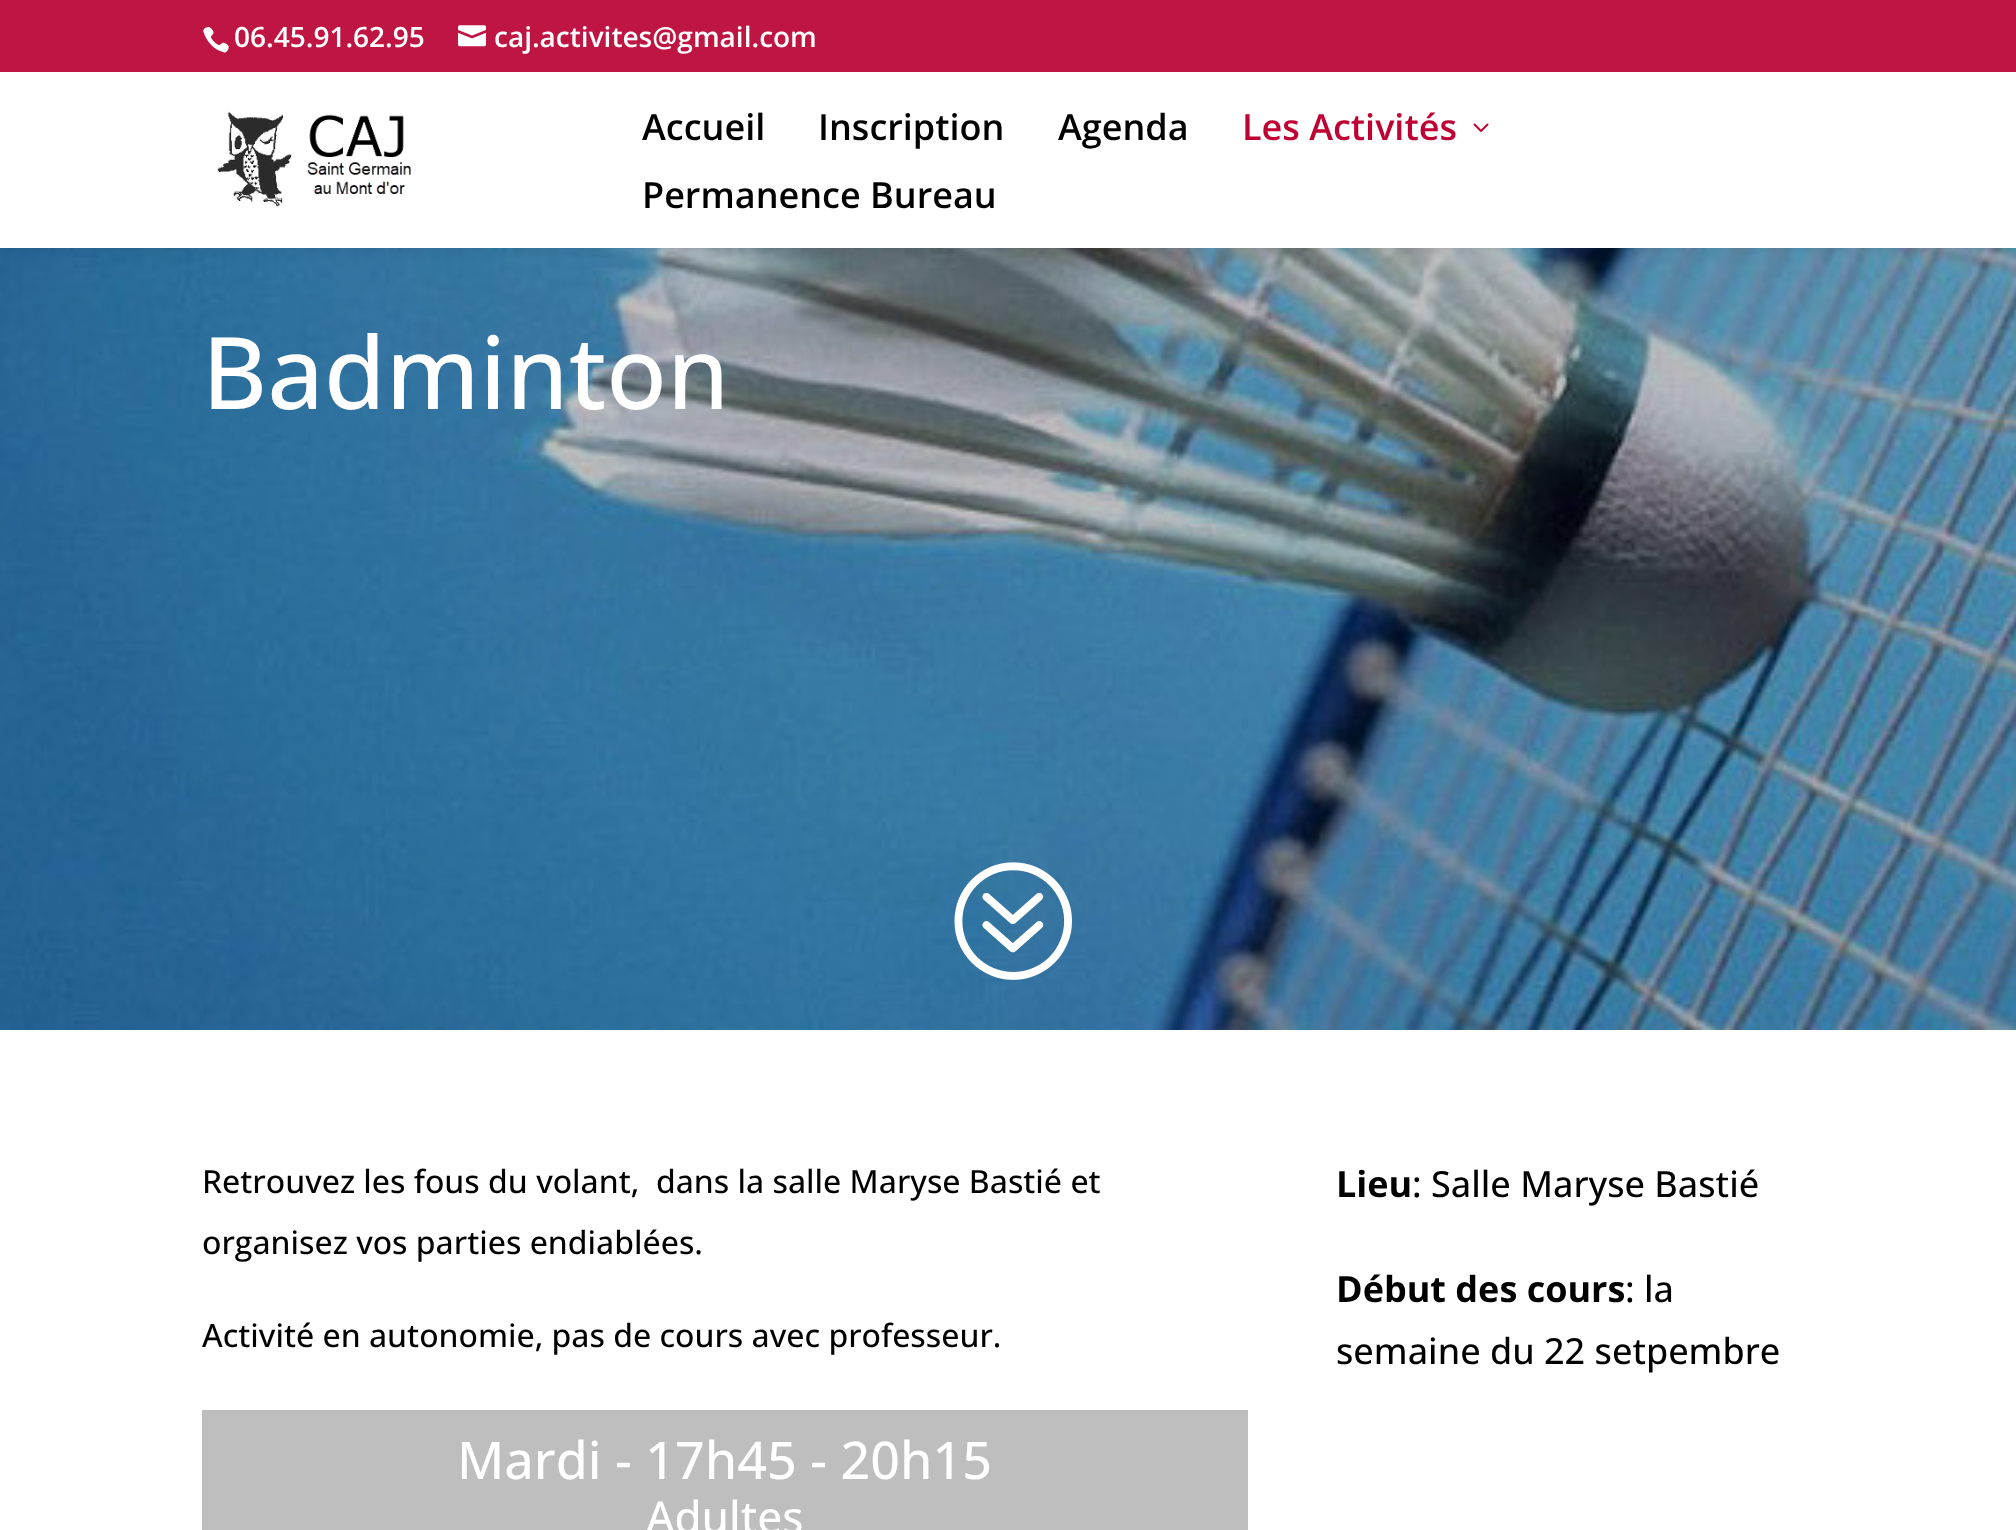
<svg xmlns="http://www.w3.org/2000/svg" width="2016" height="1530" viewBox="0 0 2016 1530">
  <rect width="100%" height="100%" fill="rgb(255,255,255)"/>
  <image x="0" y="248" width="2016" height="782" href="pic5.png"/>
  <rect x="0" y="72" width="2016" height="176" fill="rgba(0,0,0,0.1)" filter="blur(7px)"/>
  <rect x="0" y="0" width="2016" height="72" fill="rgb(191,21,66)"/>
  <image x="203" y="26" width="26" height="27" href="pic1.png"/>
  <text x="234" y="47" font-family="Open Sans" font-size="28" font-weight="600" fill="rgb(255,255,255)">06.45.91.62.95</text>
  <image x="458" y="25" width="28" height="22" href="pic2.png"/>
  <text x="494" y="47" font-family="Open Sans" font-size="28" font-weight="600" fill="rgb(255,255,255)">caj.activites@gmail.com</text>
  <rect x="0" y="72" width="2016" height="176" fill="rgb(255,255,255)"/>
  <image x="217" y="110" width="195" height="97" href="pic3.png"/>
  <g font-family="Open Sans" font-size="36" font-weight="600" fill="rgb(0,0,0)">
    <text x="642" y="140">Accueil</text>
    <text x="818" y="140">Inscription</text>
    <text x="1058" y="140">Agenda</text>
  </g>
  <text x="1242" y="140" font-family="Open Sans" font-size="36" font-weight="600" fill="rgb(191,0,51)">Les Activités</text>
  <image x="1473" y="123" width="16" height="9" href="pic4.png"/>
  <text x="642" y="208" font-family="Open Sans" font-size="36" font-weight="600" fill="rgb(0,0,0)">Permanence Bureau</text>
  <text x="202" y="409" font-family="Open Sans" font-size="100" font-weight="500" fill="rgb(255,255,255)">Badminton</text>
  <image x="954" y="862" width="118" height="118" href="pic6.png"/>
  <g font-family="Open Sans" font-size="32" font-weight="500" fill="rgb(0,0,0)">
    <text xml:space="preserve"><tspan x="202" y="1193">Retrouvez les fous du volant,  dans la salle Maryse Bastié et</tspan><tspan x="202" y="1254">organisez vos parties endiablées.</tspan></text>
    <text x="202" y="1347">Activité en autonomie, pas de cours avec professeur.</text>
  </g>
  <rect x="203" y="1411" width="1044" height="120" fill="none" stroke="rgb(190,190,190)" stroke-width="2"/>
  <rect x="204" y="1412" width="1042" height="118" fill="rgb(190,190,190)"/>
  <text x="457" y="1479" font-family="Open Sans" font-size="52" font-weight="500" fill="rgb(255,255,255)">Mardi - 17h45 - 20h15</text>
  <text x="646" y="1533" font-family="Open Sans" font-size="44" font-weight="500" fill="rgb(255,255,255)">Adultes</text>
  <text x="1336" y="1197" font-family="Open Sans" font-size="36" font-weight="bold" fill="rgb(0,0,0)">Lieu</text>
  <text x="1412" y="1197" font-family="Open Sans" font-size="36" font-weight="500" fill="rgb(0,0,0)">: Salle Maryse Bastié</text>
  <text x="1336" y="1302" font-family="Open Sans" font-size="36" font-weight="bold" fill="rgb(0,0,0)">Début des cours</text>
  <g font-family="Open Sans" font-size="36" font-weight="500" fill="rgb(0,0,0)">
    <text x="1625" y="1302">: la</text>
    <text x="1336" y="1364">semaine du 22 setpembre</text>
  </g>
</svg>
